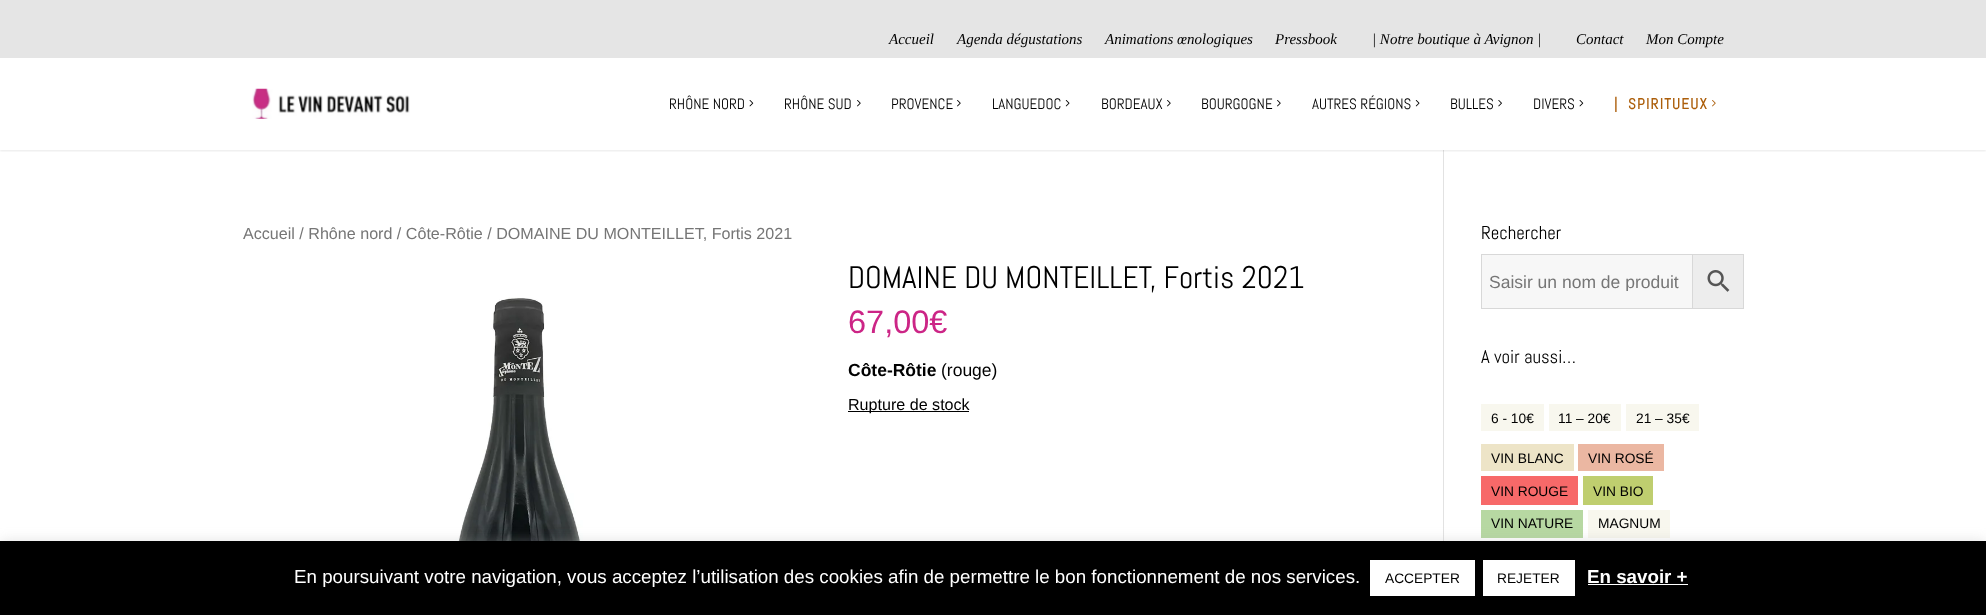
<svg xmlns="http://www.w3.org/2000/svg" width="1986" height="615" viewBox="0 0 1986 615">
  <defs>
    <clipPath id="clip1"><rect x="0" y="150" width="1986" height="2"/></clipPath>
    <clipPath id="clip2"><rect x="1490" y="271" width="194" height="20"/></clipPath>
  </defs>
  <rect width="100%" height="100%" fill="rgb(255,255,255)"/>
  <rect x="1443" y="150" width="1" height="391" fill="rgb(226,226,226)"/>
  <g clip-path="url(#clip1)">
    <rect x="0" y="59" width="1986" height="92" fill="rgba(4,0,0,0.09)" filter="blur(1px)"/>
  </g>
  <rect x="0" y="0" width="1986" height="58" fill="rgb(229,229,229)"/>
  <g font-family="Liberation Serif" font-size="15" font-style="italic" fill="rgb(0,0,0)">
    <text x="889" y="44">Accueil</text>
    <text x="957" y="44">Agenda dégustations</text>
    <text x="1105" y="44">Animations œnologiques</text>
    <text x="1275" y="44">Pressbook</text>
    <text x="1372" y="44">| Notre boutique à Avignon |</text>
    <text x="1576" y="44">Contact</text>
    <text x="1646" y="44">Mon Compte</text>
  </g>
  <image x="252" y="88" width="158" height="31" href="pic1.png"/>
  <text x="669" y="109" font-family="Abel" font-size="15" fill="rgb(0,0,0)">RHÔNE NORD</text>
  <image x="749" y="100" width="5" height="7" href="pic2.png"/>
  <text x="784" y="109" font-family="Abel" font-size="15" fill="rgb(0,0,0)">RHÔNE SUD</text>
  <image x="857" y="100" width="4" height="7" href="pic3.png"/>
  <text x="891" y="109" font-family="Abel" font-size="15" fill="rgb(0,0,0)">PROVENCE</text>
  <image x="957" y="100" width="4" height="7" href="pic3.png"/>
  <text x="992" y="109" font-family="Abel" font-size="15" fill="rgb(0,0,0)">LANGUEDOC</text>
  <image x="1065" y="100" width="5" height="7" href="pic4.png"/>
  <text x="1101" y="109" font-family="Abel" font-size="15" fill="rgb(0,0,0)">BORDEAUX</text>
  <image x="1167" y="100" width="4" height="7" href="pic3.png"/>
  <text x="1201" y="109" font-family="Abel" font-size="15" fill="rgb(0,0,0)">BOURGOGNE</text>
  <image x="1277" y="100" width="4" height="7" href="pic3.png"/>
  <text x="1312" y="109" font-family="Abel" font-size="15" fill="rgb(0,0,0)">AUTRES RÉGIONS</text>
  <image x="1415" y="100" width="5" height="7" href="pic4.png"/>
  <text x="1450" y="109" font-family="Abel" font-size="15" fill="rgb(0,0,0)">BULLES</text>
  <image x="1498" y="100" width="4" height="7" href="pic5.png"/>
  <text x="1533" y="109" font-family="Abel" font-size="15" fill="rgb(0,0,0)">DIVERS</text>
  <image x="1579" y="100" width="5" height="7" href="pic2.png"/>
  <text x="1614" y="109" font-family="Abel" font-size="15" font-weight="bold" letter-spacing="1.25" fill="rgb(172,94,10)" xml:space="preserve">|  SPIRITUEUX</text>
  <image x="1712" y="100" width="4" height="7" href="pic6.png"/>
  <text x="243" y="239" font-family="Liberation Sans" font-size="16.1" fill="rgb(118,118,118)">Accueil / Rhône nord / Côte-Rôtie / DOMAINE DU MONTEILLET, Fortis 2021</text>
  <image x="453" y="297" width="134" height="244" href="pic7.png"/>
  <text x="848" y="288" font-family="Abel" font-size="31.25" fill="rgb(0,0,0)">DOMAINE DU MONTEILLET, Fortis 2021</text>
  <text x="848" y="333" font-family="Liberation Sans" font-size="32.5" fill="rgb(204,37,134)">67,00€</text>
  <text x="848" y="376" font-family="Liberation Sans" font-size="17.5" font-weight="bold" fill="rgb(0,0,0)">Côte-Rôtie</text>
  <text x="941" y="376" font-family="Liberation Sans" font-size="17.5" fill="rgb(0,0,0)">(rouge)</text>
  <rect x="848" y="411" width="121" height="1" fill="rgb(0,0,0)"/>
  <text x="848" y="410" font-family="Liberation Sans" font-size="16.1" fill="rgb(0,0,0)">Rupture de stock</text>
  <text x="1481" y="239" font-family="Abel" font-size="18.75" fill="rgb(0,0,0)">Rechercher</text>
  <rect x="1693" y="255" width="50" height="53" fill="rgb(237,237,237)"/>
  <rect x="1691.5" y="254.5" width="52" height="54" fill="none" stroke="rgb(216,216,216)"/>
  <rect x="1481.5" y="254.5" width="211" height="54" fill="rgb(247,247,247)" stroke="rgb(216,216,216)"/>
  <g clip-path="url(#clip2)">
    <text x="1489" y="288" font-family="Liberation Sans" font-size="17.5" fill="rgb(118,118,118)">Saisir un nom de produit</text>
  </g>
  <image x="1707" y="270" width="23" height="22" href="pic8.png"/>
  <text x="1481" y="363" font-family="Abel" font-size="18.75" fill="rgb(0,0,0)">A voir aussi…</text>
  <rect x="1481" y="404" width="63" height="27" fill="rgb(248,247,238)"/>
  <text x="1491" y="423" font-family="Liberation Sans" font-size="13.75" fill="rgb(0,0,0)">6 - 10€</text>
  <rect x="1549" y="404" width="72" height="27" fill="rgb(248,247,238)"/>
  <text x="1558" y="423" font-family="Liberation Sans" font-size="13.75" fill="rgb(0,0,0)">11 – 20€</text>
  <rect x="1626" y="404" width="73" height="27" fill="rgb(248,247,238)"/>
  <text x="1636" y="423" font-family="Liberation Sans" font-size="13.75" fill="rgb(0,0,0)">21 – 35€</text>
  <rect x="1481" y="444" width="93" height="27" fill="rgb(237,228,199)"/>
  <text x="1491" y="463" font-family="Liberation Sans" font-size="13.75" fill="rgb(0,0,0)">VIN BLANC</text>
  <rect x="1578" y="444" width="86" height="27" fill="rgb(235,183,162)"/>
  <text x="1588" y="463" font-family="Liberation Sans" font-size="13.75" fill="rgb(0,0,0)">VIN ROSÉ</text>
  <rect x="1481" y="476" width="97" height="29" fill="rgb(247,105,105)"/>
  <text x="1491" y="496" font-family="Liberation Sans" font-size="13.75" fill="rgb(0,0,0)">VIN ROUGE</text>
  <rect x="1583" y="476" width="70" height="29" fill="rgb(191,206,111)"/>
  <text x="1593" y="496" font-family="Liberation Sans" font-size="13.75" fill="rgb(0,0,0)">VIN BIO</text>
  <rect x="1481" y="510" width="102" height="28" fill="rgb(183,216,162)"/>
  <text x="1491" y="528" font-family="Liberation Sans" font-size="13.75" fill="rgb(0,0,0)">VIN NATURE</text>
  <rect x="1588" y="510" width="82" height="28" fill="rgb(248,247,238)"/>
  <text x="1598" y="528" font-family="Liberation Sans" font-size="13.75" fill="rgb(0,0,0)">MAGNUM</text>
  <rect x="0" y="540" width="1986" height="74" fill="rgba(172,171,171,0.3)" filter="blur(6px)"/>
  <rect x="0" y="541" width="1986" height="74" fill="rgb(0,0,0)"/>
  <text x="294" y="583" font-family="Liberation Sans" font-size="18.75" fill="rgb(255,255,255)">En poursuivant votre navigation, vous acceptez l’utilisation des cookies afin de permettre le bon fonctionnement de nos services.</text>
  <rect x="1370" y="560" width="105" height="36" fill="rgb(255,255,255)"/>
  <text x="1385" y="583" font-family="Liberation Sans" font-size="13.75" fill="rgb(0,0,0)">ACCEPTER</text>
  <rect x="1483" y="560" width="92" height="36" fill="rgb(255,255,255)"/>
  <text x="1497" y="583" font-family="Liberation Sans" font-size="13.75" fill="rgb(0,0,0)">REJETER</text>
  <text x="1587" y="583" font-family="Liberation Sans" font-size="18.75" font-weight="bold" fill="rgb(255,255,255)">En savoir +</text>
  <rect x="1588" y="584" width="100" height="1" fill="rgb(255,255,255)"/>
</svg>
